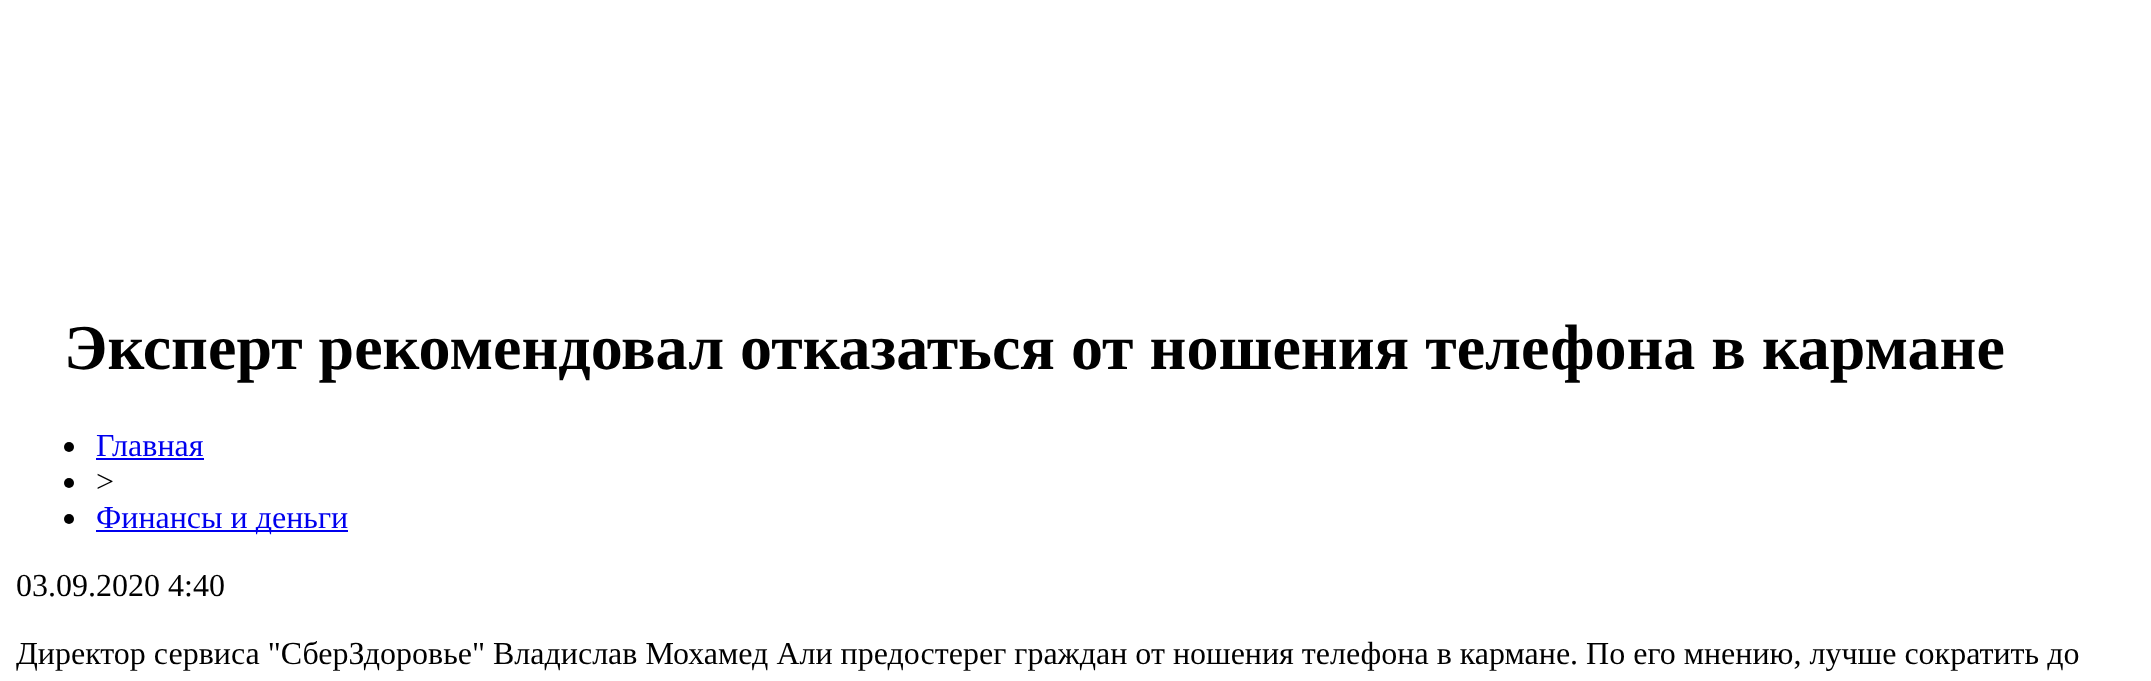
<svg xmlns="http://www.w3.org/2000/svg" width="2151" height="681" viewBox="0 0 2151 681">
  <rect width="100%" height="100%" fill="rgb(255,255,255)"/>
  <text x="64" y="369" font-family="Liberation Serif" font-size="64" font-weight="bold" fill="rgb(0,0,0)">Эксперт рекомендовал отказаться от ношения телефона в кармане</text>
  <circle cx="69" cy="447" r="5" fill="rgb(0,0,0)"/>
  <text x="96" y="456" font-family="Liberation Serif" font-size="32" fill="rgb(0,0,238)">Главная</text>
  <rect x="96" y="458" width="108" height="2" fill="rgb(0,0,238)"/>
  <circle cx="69" cy="483" r="5" fill="rgb(0,0,0)"/>
  <text x="96" y="492" font-family="Liberation Serif" font-size="32" fill="rgb(0,0,0)">&gt;</text>
  <circle cx="69" cy="519" r="5" fill="rgb(0,0,0)"/>
  <rect x="96" y="530" width="252" height="2" fill="rgb(0,0,238)"/>
  <text x="96" y="528" font-family="Liberation Serif" font-size="32" fill="rgb(0,0,238)">Финансы и деньги</text>
  <g font-family="Liberation Serif" font-size="32" fill="rgb(0,0,0)">
    <text x="16" y="596">03.09.2020 4:40</text>
    <text x="16" y="664">Директор сервиса "СберЗдоровье" Владислав Мохамед Али предостерег граждан от ношения телефона в кармане. По его мнению, лучше сократить до</text>
  </g>
</svg>
